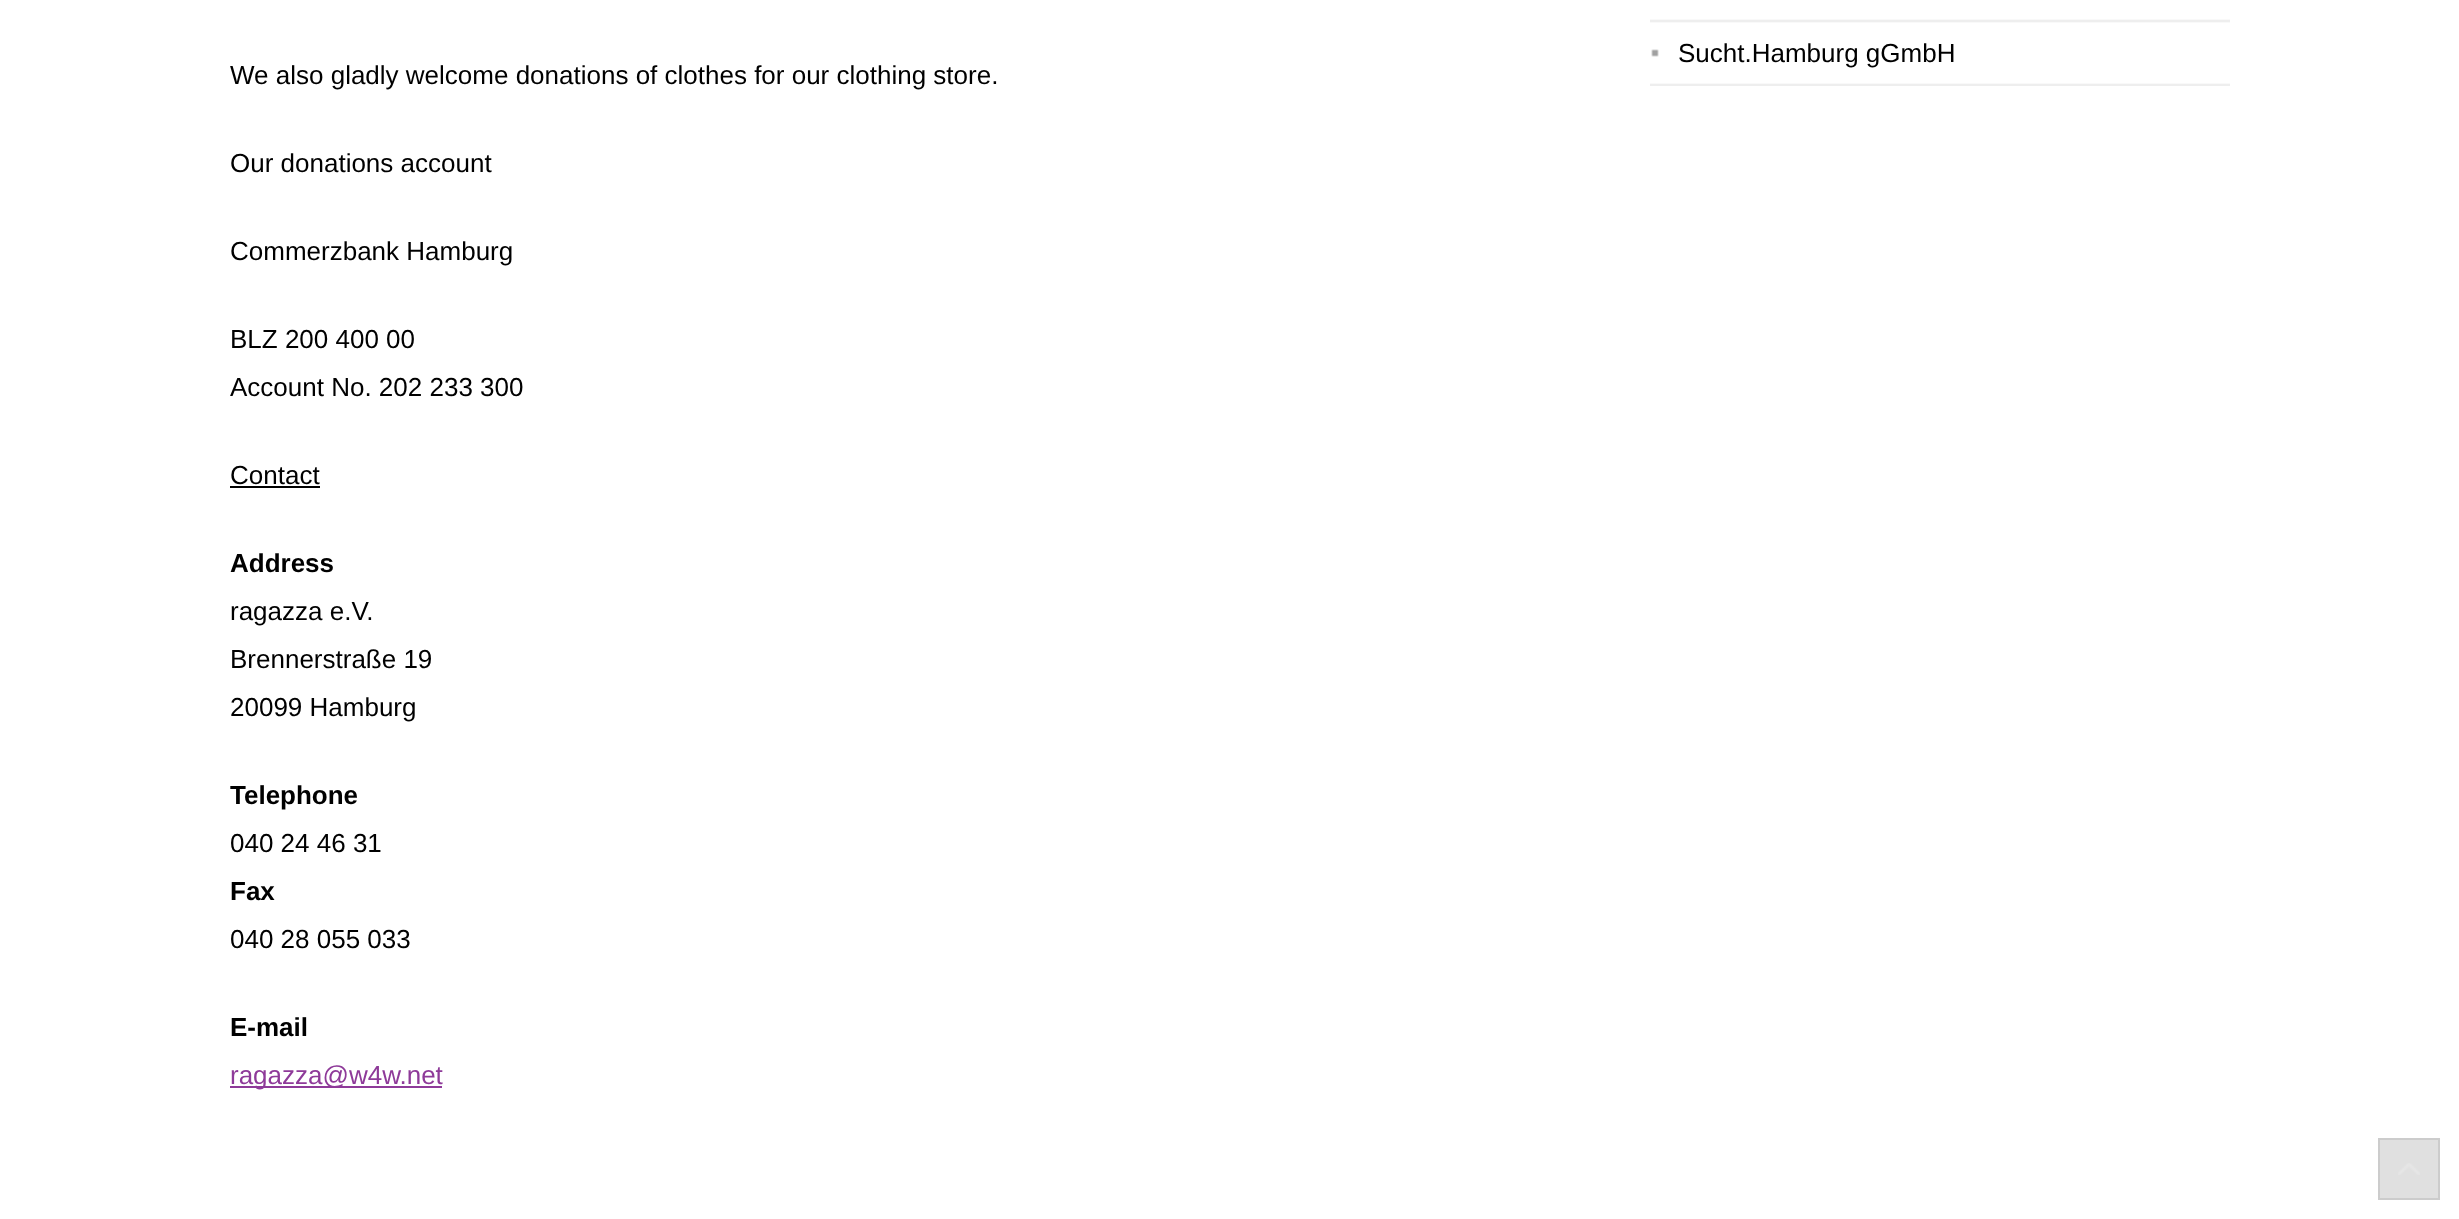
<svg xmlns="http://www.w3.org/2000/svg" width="2459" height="1219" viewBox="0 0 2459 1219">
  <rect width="100%" height="100%" fill="rgb(255,255,255)"/>
  <image x="1650" y="19" width="580" height="67" href="pic1.png"/>
  <image x="1651" y="49" width="8" height="8" href="pic2.png"/>
  <g font-family="Liberation Sans" font-size="26" fill="rgb(0,0,0)">
    <text x="1678" y="62">Sucht.Hamburg gGmbH</text>
    <text x="230" y="84">We also gladly welcome donations of clothes for our clothing store.</text>
    <text x="230" y="172">Our donations account</text>
    <text x="230" y="260">Commerzbank Hamburg</text>
    <text>
      <tspan x="230" y="348">BLZ 200 400 00</tspan>
      <tspan x="230" y="396">Account No. 202 233 300</tspan>
    </text>
    <text x="230" y="484">Contact</text>
  </g>
  <rect x="230" y="486" width="90" height="2" fill="rgb(0,0,0)"/>
  <text x="230" y="572" font-family="Liberation Sans" font-size="26" font-weight="bold" fill="rgb(0,0,0)">Address</text>
  <g font-family="Liberation Sans" font-size="26" fill="rgb(0,0,0)">
    <text>
      <tspan x="230" y="620">ragazza e.V.</tspan>
      <tspan x="230" y="668">Brennerstraße 19</tspan>
      <tspan x="230" y="716">20099 Hamburg</tspan>
    </text>
  </g>
  <text x="230" y="804" font-family="Liberation Sans" font-size="26" font-weight="bold" fill="rgb(0,0,0)">Telephone</text>
  <text x="230" y="852" font-family="Liberation Sans" font-size="26" fill="rgb(0,0,0)">040 24 46 31</text>
  <text x="230" y="900" font-family="Liberation Sans" font-size="26" font-weight="bold" fill="rgb(0,0,0)">Fax</text>
  <text x="230" y="948" font-family="Liberation Sans" font-size="26" fill="rgb(0,0,0)">040 28 055 033</text>
  <text x="230" y="1036" font-family="Liberation Sans" font-size="26" font-weight="bold" fill="rgb(0,0,0)">E-mail</text>
  <rect x="230" y="1086" width="212" height="2" fill="rgb(142,58,153)"/>
  <text x="230" y="1084" font-family="Liberation Sans" font-size="26" fill="rgb(142,58,153)">ragazza@w4w.net</text>
  <rect x="2380" y="1140" width="58" height="58" fill="rgb(224,224,224)"/>
  <image x="2398" y="1163" width="22" height="12" href="pic3.png"/>
  <rect x="2379" y="1139" width="60" height="60" fill="none" stroke="rgb(204,204,204)" stroke-width="2"/>
</svg>
